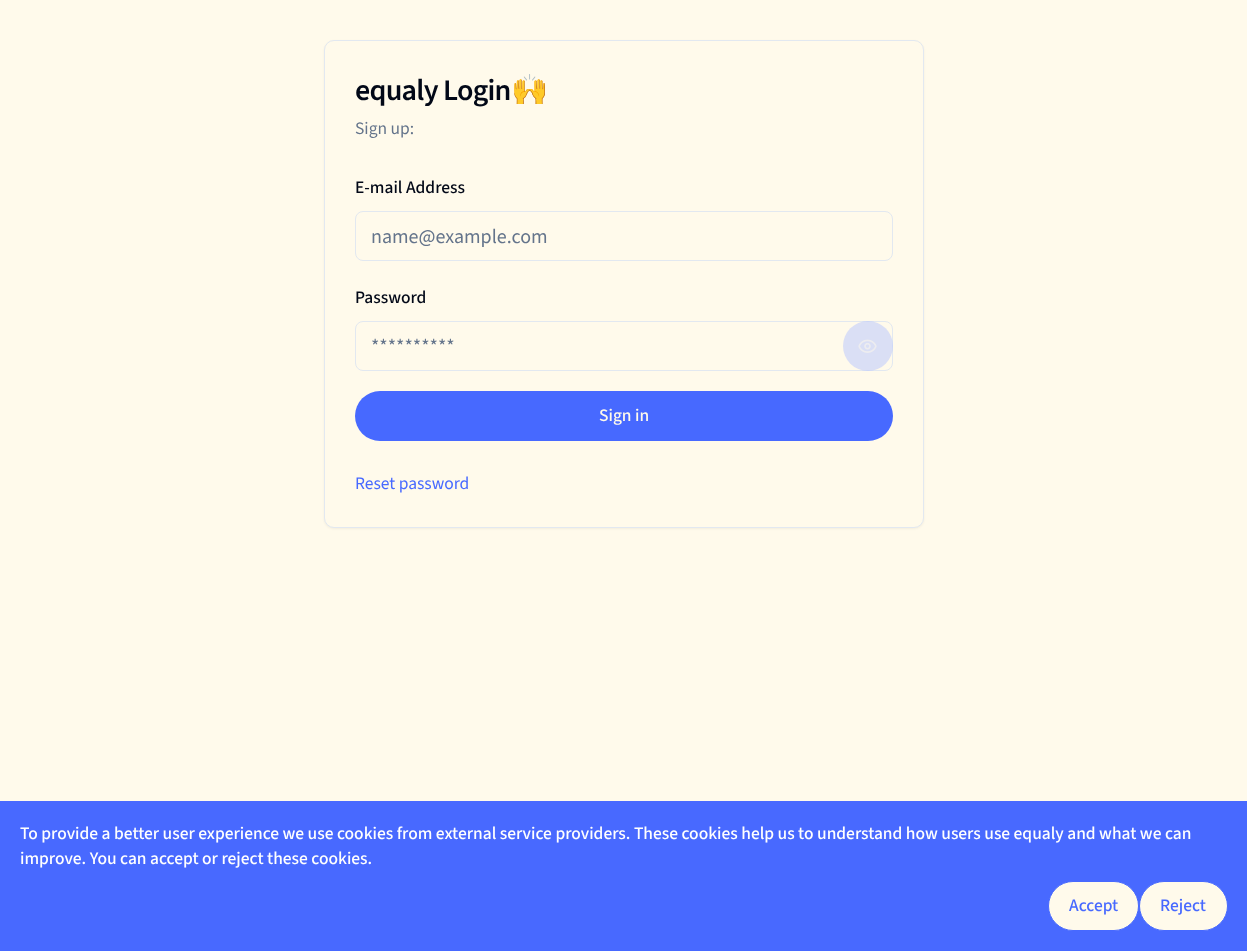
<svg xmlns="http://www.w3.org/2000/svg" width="1247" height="951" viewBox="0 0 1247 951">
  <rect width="100%" height="100%" fill="rgb(255,250,235)"/>
  <rect x="324" y="41" width="600" height="488" rx="10" fill="rgba(0,0,0,0.05)" filter="blur(1px)"/>
  <rect x="324.5" y="40.5" width="599" height="487" rx="9.5" fill="rgb(255,250,235)" stroke="rgb(226,232,240)"/>
  <text x="355" y="100" font-family="'Source Sans 3'" font-size="30" font-weight="600" letter-spacing="-0.75" fill="rgb(2,8,23)">equaly Login</text>
  <text x="511" y="100" font-family="Noto Color Emoji" font-size="30" font-weight="bold" letter-spacing="-0.75" fill="rgb(2,8,23)">🙌</text>
  <text x="355" y="134" font-family="'Source Sans 3'" font-size="17.5" fill="rgb(100,116,139)">Sign up:</text>
  <text x="355" y="193" font-family="'Source Sans 3'" font-size="17.5" font-weight="500" fill="rgb(2,8,23)">E-mail Address</text>
  <rect x="355.5" y="211.5" width="537" height="49" rx="7.5" fill="none" stroke="rgb(226,232,240)"/>
  <text x="371" y="243" font-family="'Source Sans 3'" font-size="20" fill="rgb(100,116,139)">name@example.com</text>
  <text x="355" y="303" font-family="'Source Sans 3'" font-size="17.5" font-weight="500" fill="rgb(2,8,23)">Password</text>
  <rect x="355.5" y="321.5" width="537" height="49" rx="7.5" fill="none" stroke="rgb(226,232,240)"/>
  <text x="371" y="353" font-family="'Source Sans 3'" font-size="20" fill="rgb(100,116,139)">**********</text>
  <circle cx="868" cy="346" r="25" fill="rgba(182,195,255,0.5)"/>
  <image x="858" y="339" width="19" height="14" href="pic1.png"/>
  <rect x="355" y="391" width="538" height="50" rx="25" fill="rgb(71,105,255)"/>
  <text x="599" y="421" font-family="'Source Sans 3'" font-size="17.5" font-weight="500" fill="rgb(255,250,235)">Sign in</text>
  <text x="355" y="489" font-family="'Source Sans 3'" font-size="17.5" fill="rgb(71,105,255)">Reset password</text>
  <rect x="0" y="801" width="1247" height="150" fill="rgb(72,105,255)"/>
  <g font-family="'Source Sans 3'" font-size="17.5" font-weight="500" fill="rgb(255,255,255)">
    <text>
      <tspan x="20" y="839">To provide a better user experience we use cookies from external service providers. These cookies help us to understand how users use equaly and what we can</tspan>
      <tspan x="20" y="864">improve. You can accept or reject these cookies.</tspan>
    </text>
  </g>
  <rect x="1048.5" y="881.5" width="90" height="49" rx="24.5" fill="rgb(255,250,235)" stroke="rgb(71,105,255)"/>
  <text x="1069" y="911" font-family="'Source Sans 3'" font-size="17.5" font-weight="500" fill="rgb(71,105,255)">Accept</text>
  <rect x="1139.5" y="881.5" width="88" height="49" rx="24.5" fill="rgb(255,250,235)" stroke="rgb(71,105,255)"/>
  <text x="1160" y="911" font-family="'Source Sans 3'" font-size="17.5" font-weight="500" fill="rgb(71,105,255)">Reject</text>
</svg>
